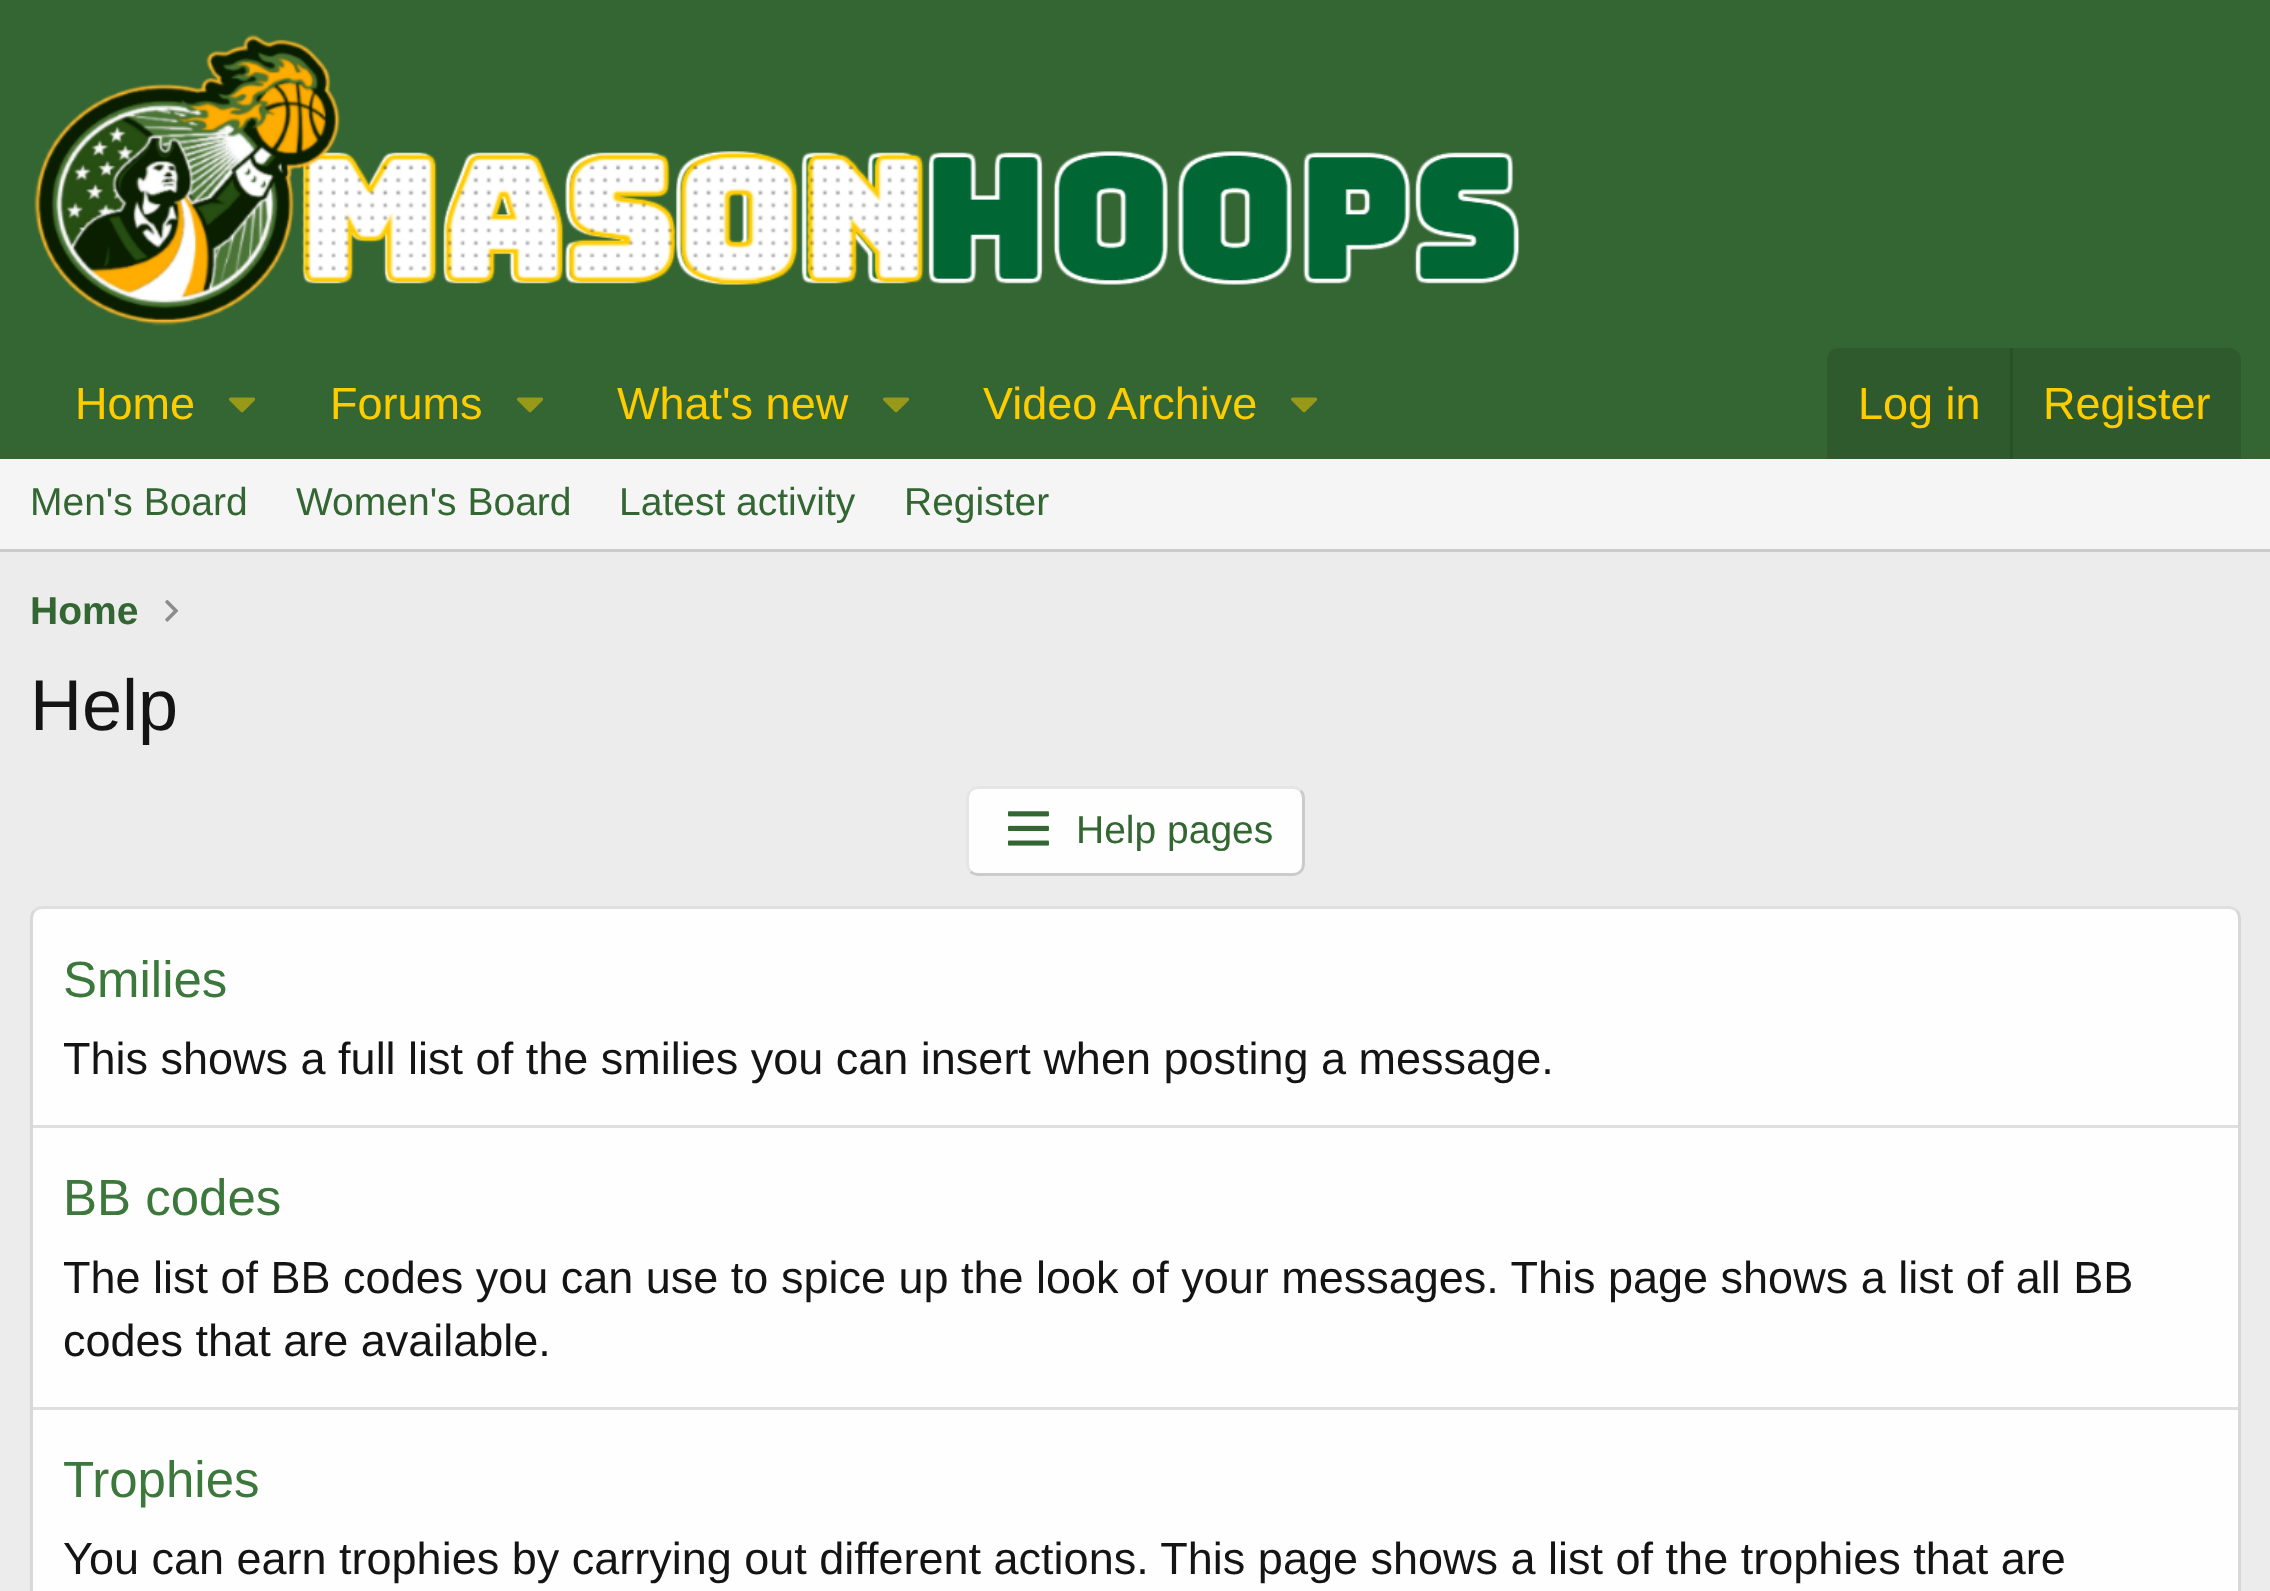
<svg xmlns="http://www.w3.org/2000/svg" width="2270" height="1591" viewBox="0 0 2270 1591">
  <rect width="100%" height="100%" fill="rgb(236,236,236)"/>
  <rect x="0" y="0" width="2270" height="459" fill="rgb(51,102,51)"/>
  <image x="34" y="34" width="1486" height="292" href="pic1.png"/>
  <text x="75" y="419" font-family="Liberation Sans" font-size="45" fill="rgb(255,204,0)">Home</text>
  <image x="229" y="397" width="27" height="16" href="pic2.png"/>
  <text x="330" y="419" font-family="Liberation Sans" font-size="45" fill="rgb(255,204,0)">Forums</text>
  <image x="517" y="397" width="27" height="16" href="pic2.png"/>
  <text x="617" y="419" font-family="Liberation Sans" font-size="45" fill="rgb(255,204,0)">What's new</text>
  <image x="883" y="397" width="27" height="16" href="pic2.png"/>
  <text x="983" y="419" font-family="Liberation Sans" font-size="45" fill="rgb(255,204,0)">Video Archive</text>
  <image x="1291" y="397" width="27" height="16" href="pic2.png"/>
  <path d="M1839 348H2229C2235.5 348 2241 353.5 2241 360V459H1827V360C1827 353.5 1832.5 348 1839 348Z" fill="rgb(46,90,46)"/>
  <text x="1858" y="419" font-family="Liberation Sans" font-size="45" fill="rgb(255,204,0)">Log in</text>
  <rect x="2010" y="348" width="3" height="111" fill="rgb(42,80,42)"/>
  <text x="2043" y="419" font-family="Liberation Sans" font-size="45" fill="rgb(255,204,0)">Register</text>
  <rect x="0" y="459" width="2270" height="90" fill="rgb(245,245,245)"/>
  <rect x="0" y="549" width="2270" height="3" fill="rgb(203,203,203)"/>
  <g font-family="Liberation Sans" font-size="39" fill="rgb(51,102,51)">
    <text x="30" y="515">Men's Board</text>
    <text x="296" y="515">Women's Board</text>
    <text x="619" y="515">Latest activity</text>
    <text x="904" y="515">Register</text>
  </g>
  <text x="30" y="624" font-family="Liberation Sans" font-size="39" font-weight="bold" fill="rgb(51,102,51)">Home</text>
  <image x="165" y="599" width="14" height="23" href="pic3.png"/>
  <text x="30" y="730" font-family="Liberation Sans" font-size="72" fill="rgb(20,20,20)">Help</text>
  <rect x="966" y="786" width="339" height="90" rx="12" fill="rgb(254,254,254)"/>
  <path d="M1300.5 790.5C1302.5 792.5 1303.5 795 1303.5 798V864C1303.5 867 1302.5 869.5 1300.5 871.5C1298.5 873.5 1296 874.5 1293 874.5H978C975 874.5 972.5 873.5 970.5 871.5" fill="none" stroke="rgb(203,203,203)" stroke-width="3"/>
  <path d="M970.5 871.5C968.5 869.5 967.5 867 967.5 864V798C967.5 795 968.5 792.5 970.5 790.5C972.5 788.5 975 787.5 978 787.5H1293C1296 787.5 1298.5 788.5 1300.5 790.5" fill="none" stroke="rgb(229,229,229)" stroke-width="3"/>
  <image x="1008" y="811" width="41" height="35" href="pic4.png"/>
  <text x="1076" y="843" font-family="Liberation Sans" font-size="39" fill="rgb(51,102,51)">Help pages</text>
  <rect x="30" y="906" width="2211" height="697" rx="12" fill="rgb(254,254,254)"/>
  <path d="M34.5 910.5C36.5 908.5 39 907.5 42 907.5H2229C2232 907.5 2234.5 908.5 2236.5 910.5" fill="none" stroke="rgb(223,223,223)" stroke-width="3"/>
  <path d="M2236.5 910.5C2238.5 912.5 2239.5 915 2239.5 918V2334C2239.5 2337 2238.5 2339.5 2236.5 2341.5" fill="none" stroke="rgb(216,216,216)" stroke-width="3"/>
  <path d="M34.5 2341.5C32.5 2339.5 31.5 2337 31.5 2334V918C31.5 915 32.5 912.5 34.5 910.5" fill="none" stroke="rgb(216,216,216)" stroke-width="3"/>
  <text x="63" y="997" font-family="Liberation Sans" font-size="51" fill="rgb(60,119,60)">Smilies</text>
  <text x="63" y="1074" font-family="Liberation Sans" font-size="45" fill="rgb(20,20,20)">This shows a full list of the smilies you can insert when posting a message.</text>
  <rect x="33" y="1125" width="2205" height="3" fill="rgb(223,223,223)"/>
  <text x="63" y="1215" font-family="Liberation Sans" font-size="51" fill="rgb(60,119,60)">BB codes</text>
  <g font-family="Liberation Sans" font-size="45" fill="rgb(20,20,20)">
    <text>
      <tspan x="63" y="1293">The list of BB codes you can use to spice up the look of your messages. This page shows a list of all BB</tspan>
      <tspan x="63" y="1356">codes that are available.</tspan>
    </text>
  </g>
  <rect x="33" y="1407" width="2205" height="3" fill="rgb(223,223,223)"/>
  <text x="63" y="1497" font-family="Liberation Sans" font-size="51" fill="rgb(60,119,60)">Trophies</text>
  <text x="63" y="1574" font-family="Liberation Sans" font-size="45" fill="rgb(20,20,20)">You can earn trophies by carrying out different actions. This page shows a list of the trophies that are</text>
</svg>
